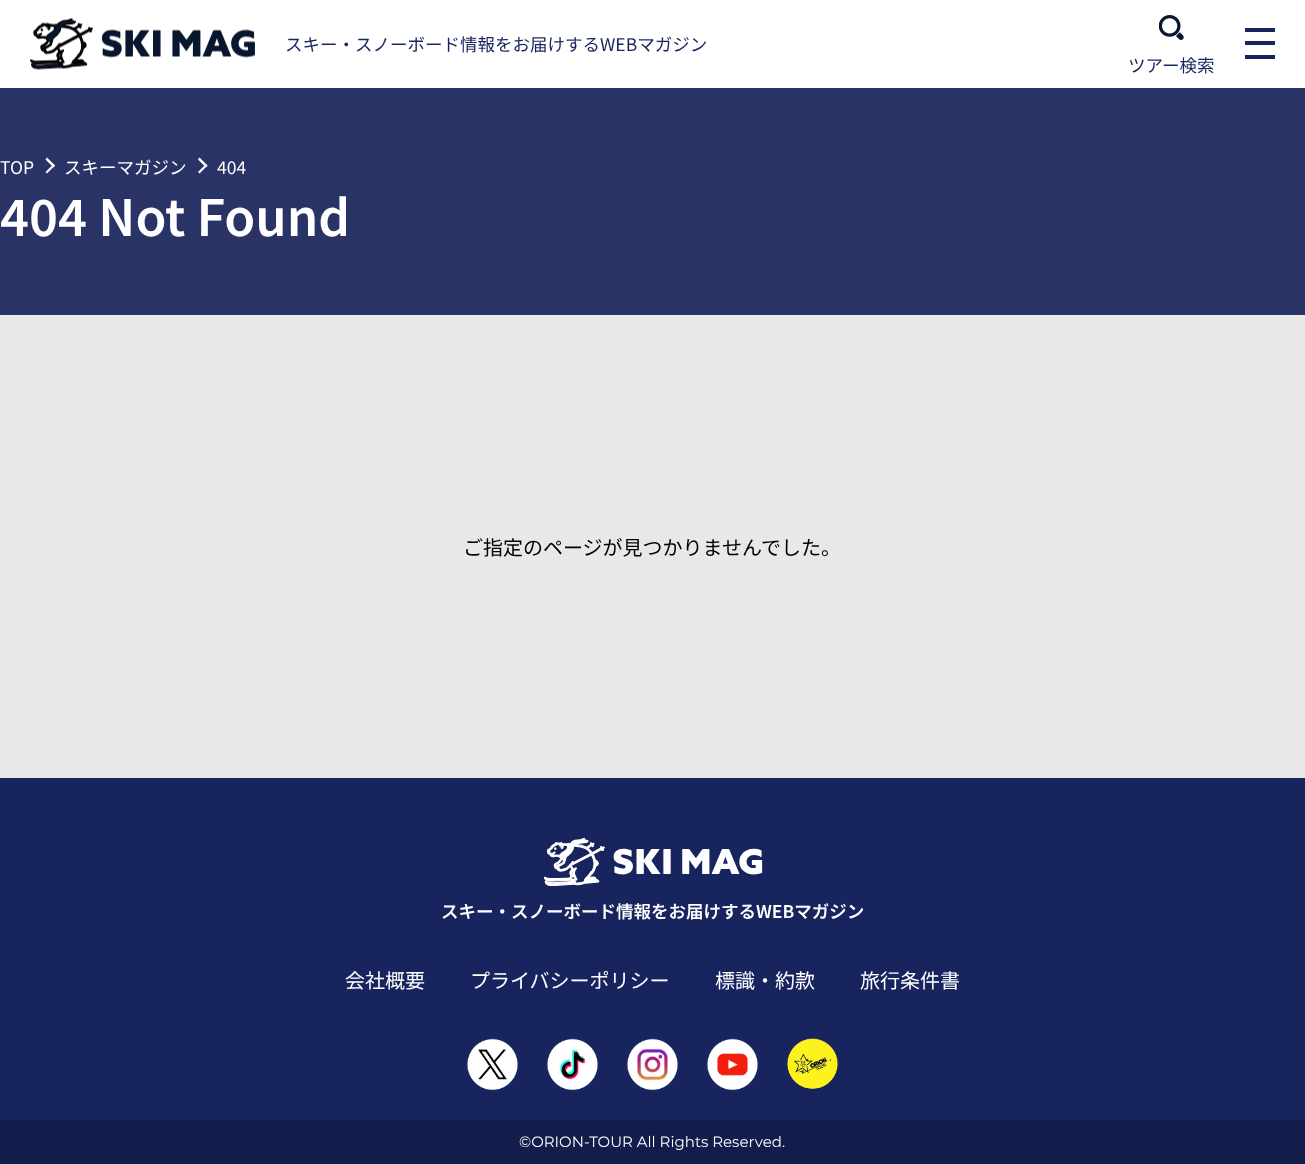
<svg xmlns="http://www.w3.org/2000/svg" width="1305" height="1164" viewBox="0 0 1305 1164">
  <rect width="100%" height="100%" fill="rgb(232,232,232)"/>
  <rect x="0" y="0" width="1305" height="88" fill="rgb(255,255,255)"/>
  <image x="30" y="18" width="225" height="52" href="pic1.png"/>
  <text x="285" y="51" font-family="Noto Sans JP" font-size="17.5" fill="rgb(24,36,94)">スキー・スノーボード情報をお届けするWEBマガジン</text>
  <rect x="1245" y="28" width="30" height="4" fill="rgb(24,36,94)"/>
  <rect x="1245" y="41" width="30" height="4" fill="rgb(24,36,94)"/>
  <rect x="1245" y="55" width="30" height="4" fill="rgb(24,36,94)"/>
  <image x="1159" y="15" width="25" height="25" href="pic2.png"/>
  <text x="1128" y="72" font-family="Noto Sans JP" font-size="17.5" fill="rgb(24,36,94)">ツアー検索</text>
  <rect x="0" y="88" width="1305" height="227" fill="rgb(41,51,102)"/>
  <text x="0" y="174" font-family="Noto Sans JP" font-size="17.5" fill="rgb(255,255,255)">TOP</text>
  <path d="M47 157.5L55 165.5L53.5 167.5L45.5 159.5Z" fill="rgb(255,255,255)"/>
  <path d="M53.5 164L55 165.5L47 173.5L45.5 172Z" fill="rgb(255,255,255)"/>
  <text x="64" y="174" font-family="Noto Sans JP" font-size="17.5" fill="rgb(255,255,255)">スキーマガジン</text>
  <path d="M199.5 157.5L207.5 165.5L206 167.5L198 159.5Z" fill="rgb(255,255,255)"/>
  <path d="M206 164L207.5 165.5L199.5 173.5L198 172Z" fill="rgb(255,255,255)"/>
  <text x="217" y="174" font-family="Noto Sans JP" font-size="17.5" fill="rgb(255,255,255)">404</text>
  <text x="0" y="236" font-family="Noto Sans JP" font-size="50" font-weight="600" fill="rgb(255,255,255)">404 Not Found</text>
  <text x="463" y="555" font-family="Noto Sans JP" font-size="20" fill="rgb(0,0,0)">ご指定のページが見つかりませんでした。</text>
  <rect x="0" y="778" width="1305" height="342" fill="rgb(24,36,94)"/>
  <image x="544" y="838" width="219" height="48" href="pic3.png"/>
  <text x="441" y="918" font-family="Noto Sans JP" font-size="17.5" font-weight="600" fill="rgb(255,255,255)">スキー・スノーボード情報をお届けするWEBマガジン</text>
  <g font-family="Noto Sans JP" font-size="20" fill="rgb(255,255,255)">
    <text x="345" y="988">会社概要</text>
    <text x="470" y="988">プライバシーポリシー</text>
    <text x="715" y="988">標識・約款</text>
    <text x="860" y="988">旅行条件書</text>
  </g>
  <image x="467" y="1038" width="51" height="52" href="pic4.png"/>
  <image x="547" y="1038" width="51" height="52" href="pic5.png"/>
  <image x="627" y="1038" width="51" height="52" href="pic6.png"/>
  <image x="707" y="1038" width="51" height="52" href="pic7.png"/>
  <image x="787" y="1038" width="51" height="51" href="pic8.png"/>
  <rect x="0" y="1120" width="1305" height="44" fill="rgb(19,29,75)"/>
  <text x="519" y="1147" font-family="Montserrat" font-size="15" fill="rgb(255,255,255)">©ORION-TOUR All Rights Reserved.</text>
</svg>
